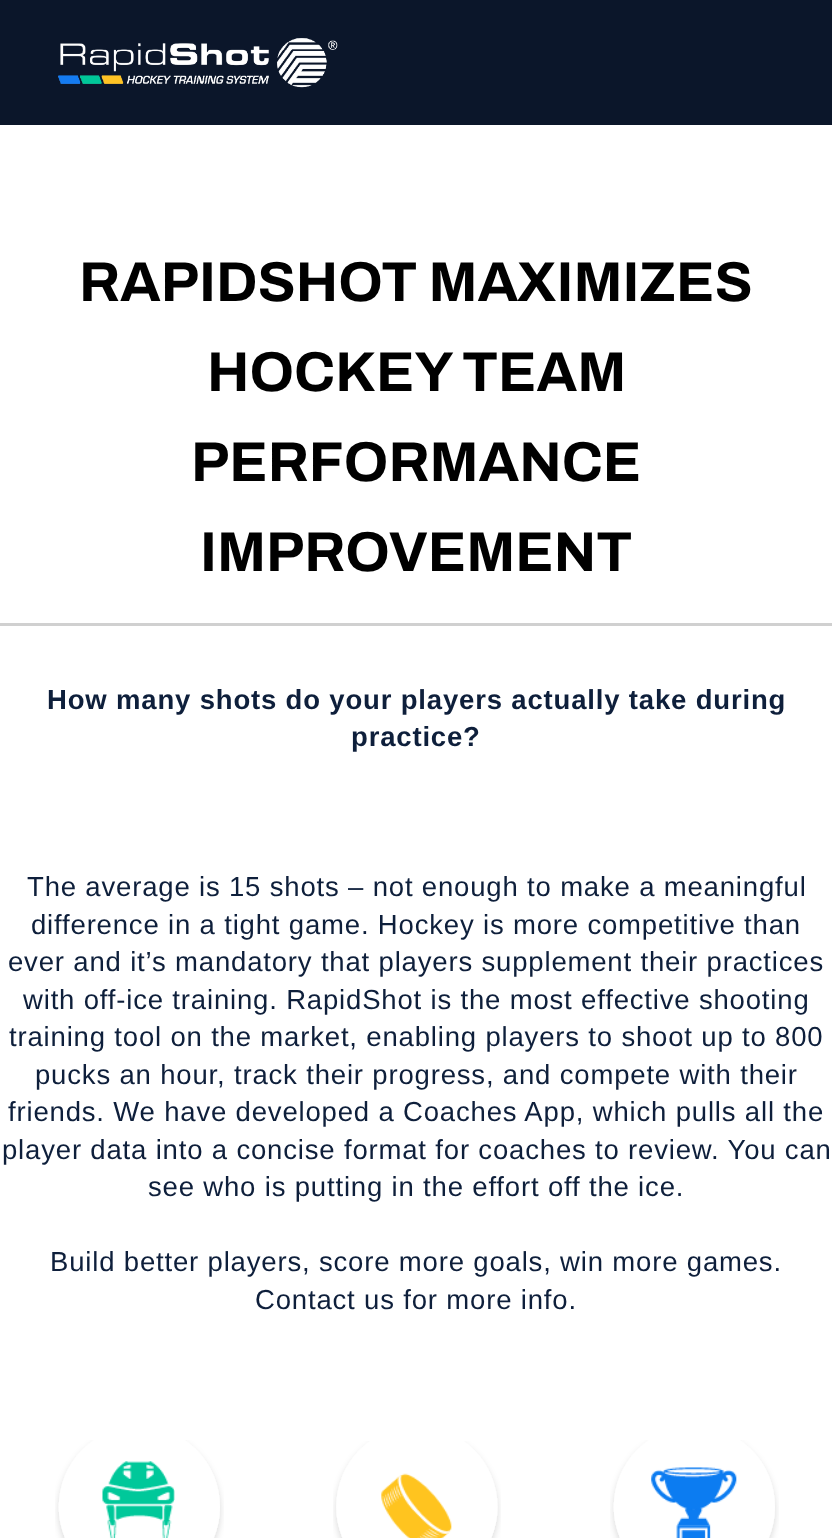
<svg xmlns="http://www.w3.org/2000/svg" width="832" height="1538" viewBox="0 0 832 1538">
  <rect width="100%" height="100%" fill="rgb(255,255,255)"/>
  <rect x="0" y="0" width="832" height="125" fill="rgb(11,22,42)"/>
  <image x="58" y="38" width="280" height="50" href="pic1.png"/>
  <rect x="0" y="623" width="832" height="3" fill="rgb(208,208,208)"/>
  <g font-family="Archivo" font-size="56.25" font-weight="bold" fill="rgb(0,0,0)">
    <text x="79" y="301">RAPIDSHOT MAXIMIZES</text>
    <text x="207" y="391">HOCKEY TEAM</text>
    <text x="191" y="481">PERFORMANCE</text>
    <text x="200" y="571">IMPROVEMENT</text>
  </g>
  <g font-family="Liberation Sans" font-size="27.5" font-weight="bold" letter-spacing="0.83" fill="rgb(14,31,59)">
    <text x="47" y="709">How many shots do your players actually take during</text>
    <text x="351" y="746">practice?</text>
  </g>
  <g font-family="Liberation Sans" font-size="27.5" letter-spacing="0.83" fill="rgb(14,31,59)">
    <text x="27" y="896">The average is 15 shots – not enough to make a meaningful</text>
    <text x="31" y="934">difference in a tight game. Hockey is more competitive than</text>
    <text x="8" y="971">ever and it’s mandatory that players supplement their practices</text>
    <text x="23" y="1009">with off-ice training. RapidShot is the most effective shooting</text>
    <text x="9" y="1046">training tool on the market, enabling players to shoot up to 800</text>
    <text x="35" y="1084">pucks an hour, track their progress, and compete with their</text>
    <text x="8" y="1121">friends. We have developed a Coaches App, which pulls all the</text>
    <text x="2" y="1159">player data into a concise format for coaches to review. You can</text>
    <text x="148" y="1196">see who is putting in the effort off the ice.</text>
    <text x="50" y="1271">Build better players, score more goals, win more games.</text>
    <text x="255" y="1309">Contact us for more info.</text>
  </g>
  <image x="55" y="1440" width="169" height="98" href="pic2.png"/>
  <image x="102" y="1461" width="73" height="77" href="pic3.png"/>
  <image x="333" y="1441" width="168" height="97" href="pic4.png"/>
  <image x="381" y="1473" width="71" height="65" href="pic5.png"/>
  <image x="610" y="1440" width="169" height="98" href="pic6.png"/>
  <image x="651" y="1467" width="86" height="71" href="pic7.png"/>
</svg>
